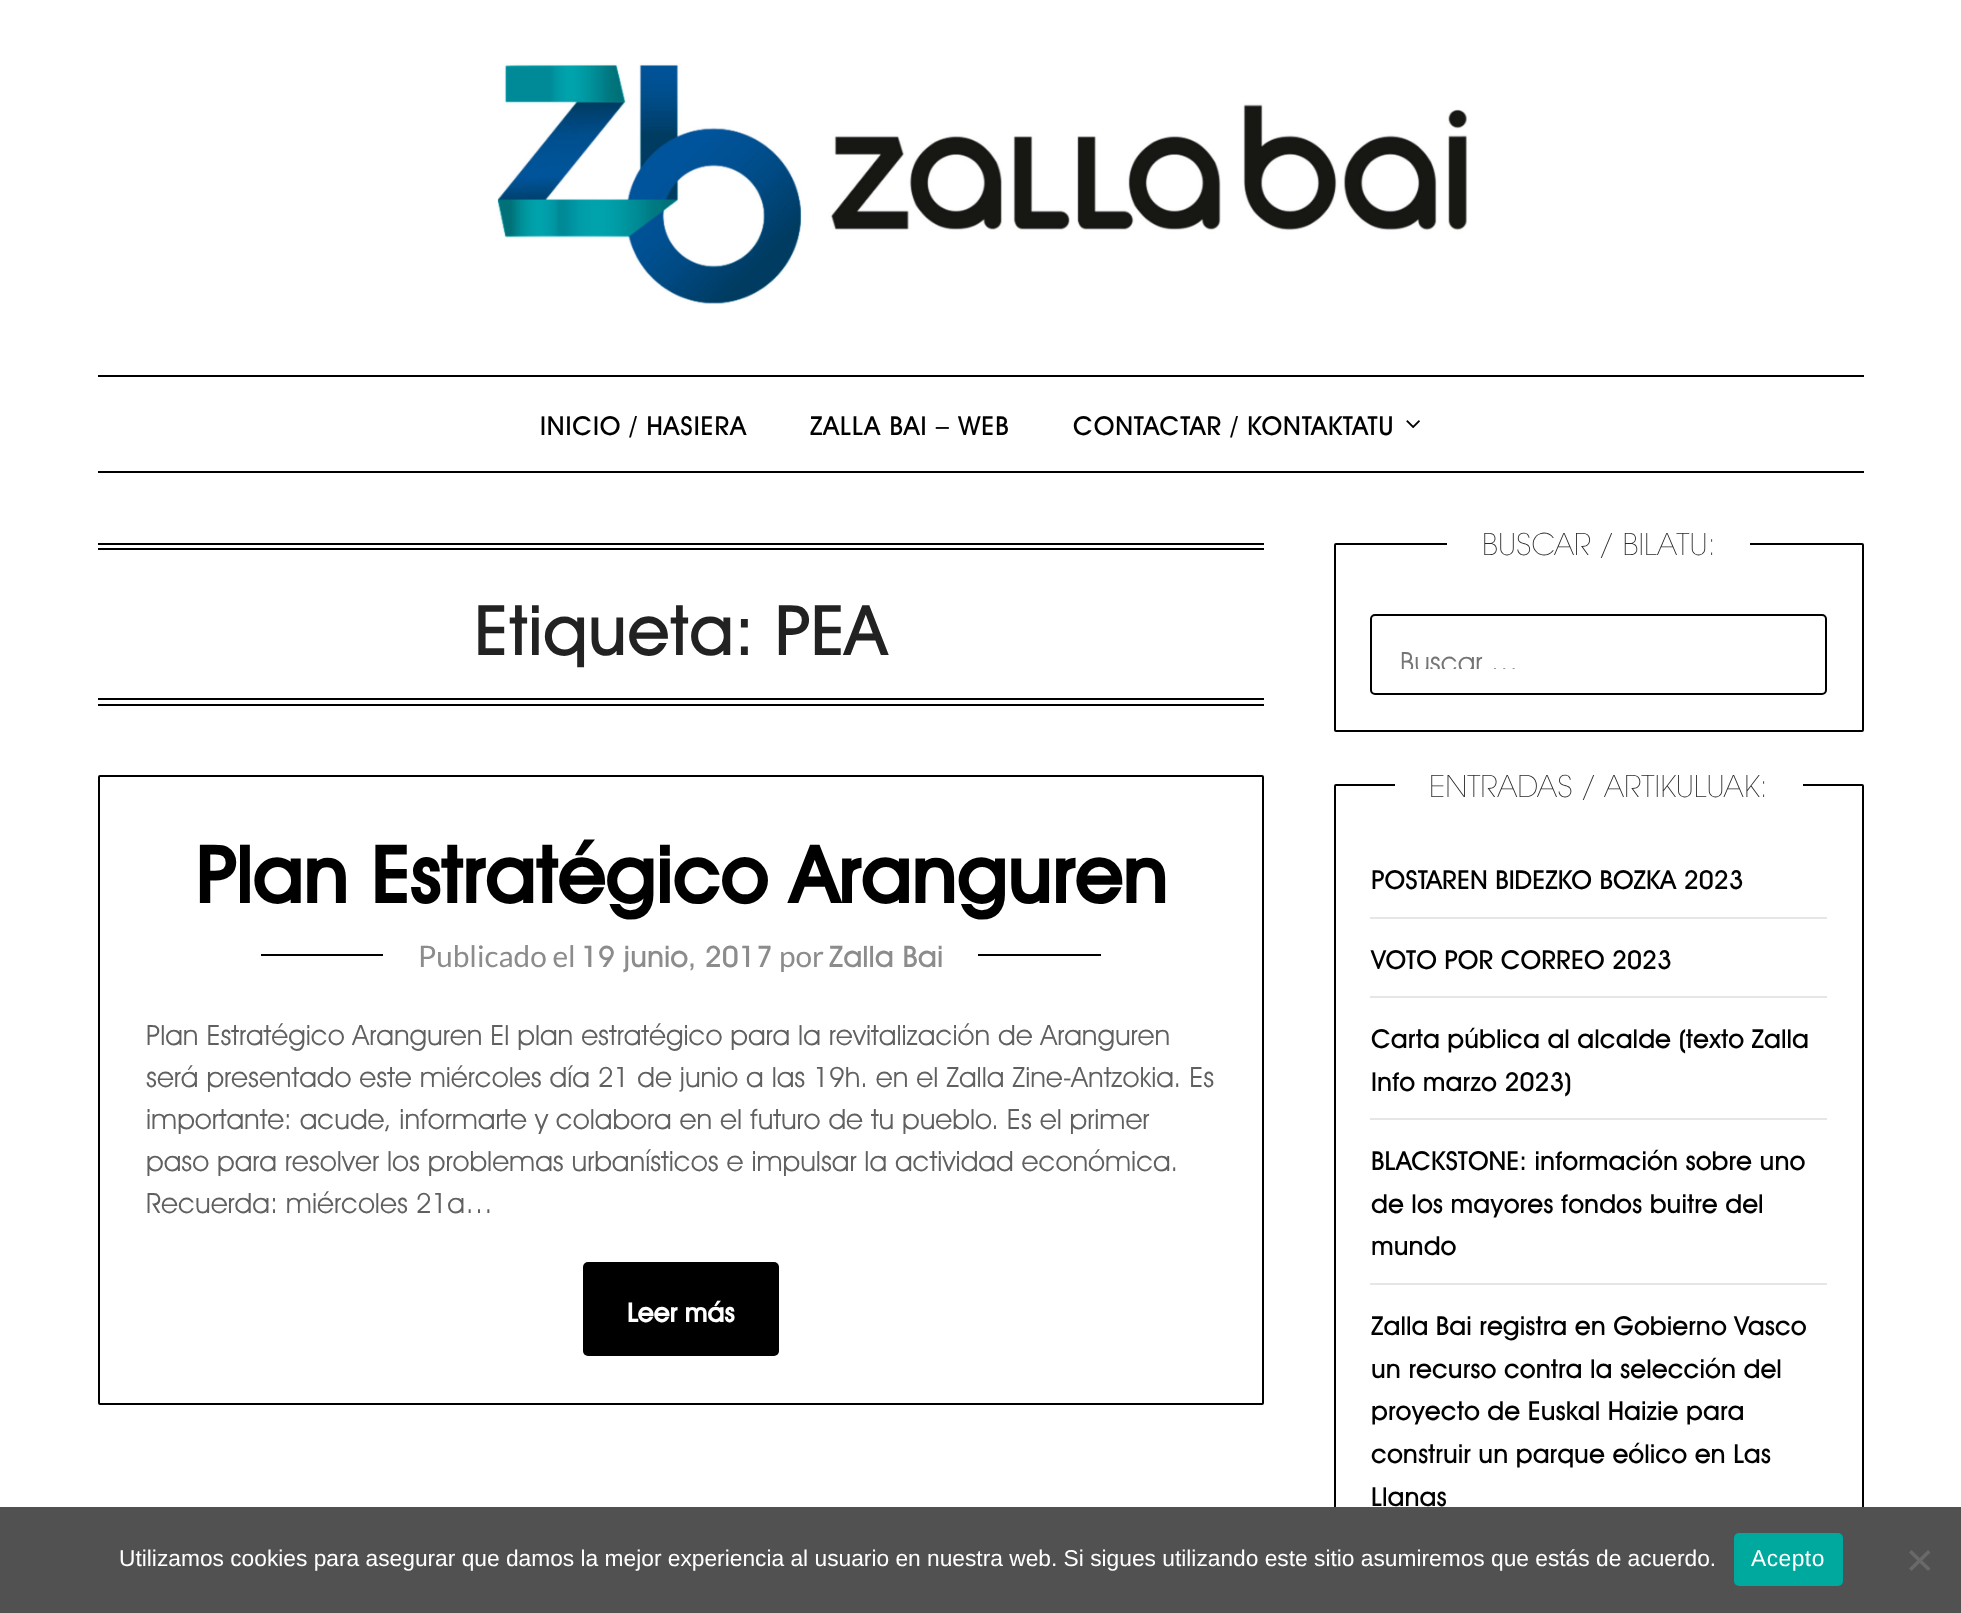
<svg xmlns="http://www.w3.org/2000/svg" width="1961" height="1613" viewBox="0 0 1961 1613">
  <defs>
    <clipPath id="clip1"><rect x="1400" y="649" width="390" height="20"/></clipPath>
  </defs>
  <rect width="100%" height="100%" fill="rgb(255,255,255)"/>
  <image x="497" y="63" width="971" height="241" href="pic1.png"/>
  <rect x="98" y="375" width="1766" height="2" fill="rgb(0,0,0)"/>
  <rect x="98" y="471" width="1766" height="2" fill="rgb(0,0,0)"/>
  <g font-family="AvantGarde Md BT" font-size="26.25" font-weight="500" letter-spacing="0.9" fill="rgb(0,0,0)">
    <text x="540" y="435">INICIO / HASIERA</text>
    <text x="810" y="435">ZALLA BAI – WEB</text>
    <text x="1073" y="435">CONTACTAR / KONTAKTATU</text>
  </g>
  <image x="1406" y="420" width="14" height="9" href="pic2.png"/>
  <rect x="98" y="543" width="1166" height="2" fill="rgb(0,0,0)"/>
  <rect x="98" y="548" width="1166" height="2" fill="rgb(0,0,0)"/>
  <rect x="98" y="698" width="1166" height="2" fill="rgb(0,0,0)"/>
  <rect x="98" y="704" width="1166" height="2" fill="rgb(0,0,0)"/>
  <text x="474" y="655" font-family="AvantGarde Md BT" font-size="70" font-weight="500" fill="rgb(34,34,34)">Etiqueta: PEA</text>
  <rect x="99" y="776" width="1164" height="628" rx="1" fill="none" stroke="rgb(0,0,0)" stroke-width="2"/>
  <text x="195" y="903" font-family="AvantGarde Md BT" font-size="78.75" font-weight="bold" fill="rgb(0,0,0)">Plan Estratégico Aranguren</text>
  <rect x="261" y="954" width="840" height="2" fill="rgb(0,0,0)"/>
  <rect x="383" y="954" width="595" height="2" fill="rgb(255,255,255)"/>
  <text x="418" y="967" font-family="Lato" font-size="29.75" fill="rgb(140,140,140)">Publicado el</text>
  <text x="581" y="967" font-family="AvantGarde Md BT" font-size="29.75" font-weight="500" fill="rgb(140,140,140)">19 junio, 2017</text>
  <text x="779" y="967" font-family="Lato" font-size="29.75" fill="rgb(140,140,140)">por</text>
  <text x="829" y="967" font-family="AvantGarde Md BT" font-size="29.75" font-weight="500" fill="rgb(140,140,140)">Zalla Bai</text>
  <g font-family="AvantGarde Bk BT" font-size="28" fill="rgb(96,96,96)">
    <text>
      <tspan x="146" y="1045">Plan Estratégico Aranguren El plan estratégico para la revitalización de Aranguren</tspan>
      <tspan x="146" y="1087">será presentado este miércoles día 21 de junio a las 19h. en el Zalla Zine-Antzokia. Es</tspan>
      <tspan x="146" y="1129">importante: acude, informarte y colabora en el futuro de tu pueblo. Es el primer</tspan>
      <tspan x="146" y="1171">paso para resolver los problemas urbanísticos e impulsar la actividad económica.</tspan>
      <tspan x="146" y="1213">Recuerda: miércoles 21a…</tspan>
    </text>
  </g>
  <rect x="583" y="1262" width="196" height="94" rx="5" fill="rgb(0,0,0)"/>
  <text x="627" y="1322" font-family="AvantGarde Md BT" font-size="26.25" font-weight="bold" fill="rgb(255,255,255)">Leer más</text>
  <rect x="1335" y="544" width="528" height="187" rx="1" fill="none" stroke="rgb(0,0,0)" stroke-width="2"/>
  <rect x="1447" y="543" width="303" height="2" fill="rgb(255,255,255)"/>
  <text x="1482" y="555" font-family="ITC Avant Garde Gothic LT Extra" font-size="29.75" font-weight="200" fill="rgb(43,43,43)">BUSCAR / BILATU:</text>
  <rect x="1371" y="615" width="455" height="79" rx="4" fill="none" stroke="rgb(0,0,0)" stroke-width="2"/>
  <g clip-path="url(#clip1)">
    <text x="1400" y="672" font-family="AvantGarde Bk BT" font-size="28" fill="rgb(117,117,117)">Buscar …</text>
  </g>
  <rect x="1335" y="785" width="528" height="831" rx="1" fill="none" stroke="rgb(0,0,0)" stroke-width="2"/>
  <rect x="1395" y="784" width="408" height="2" fill="rgb(255,255,255)"/>
  <text x="1429" y="797" font-family="ITC Avant Garde Gothic LT Extra" font-size="29.75" font-weight="200" fill="rgb(43,43,43)">ENTRADAS / ARTIKULUAK:</text>
  <rect x="1370" y="917" width="457" height="2" fill="rgb(230,230,230)"/>
  <text x="1371" y="889" font-family="AvantGarde Md BT" font-size="26.25" font-weight="500" fill="rgb(0,0,0)">POSTAREN BIDEZKO BOZKA 2023</text>
  <rect x="1370" y="996" width="457" height="2" fill="rgb(230,230,230)"/>
  <text x="1371" y="969" font-family="AvantGarde Md BT" font-size="26.25" font-weight="500" fill="rgb(0,0,0)">VOTO POR CORREO 2023</text>
  <rect x="1370" y="1118" width="457" height="2" fill="rgb(230,230,230)"/>
  <g font-family="AvantGarde Md BT" font-size="26.25" font-weight="500" fill="rgb(0,0,0)">
    <text>
      <tspan x="1371" y="1048">Carta pública al alcalde (texto Zalla</tspan>
      <tspan x="1371" y="1091">Info marzo 2023)</tspan>
    </text>
  </g>
  <rect x="1370" y="1283" width="457" height="2" fill="rgb(230,230,230)"/>
  <g font-family="AvantGarde Md BT" font-size="26.25" font-weight="500" fill="rgb(0,0,0)">
    <text>
      <tspan x="1371" y="1170">BLACKSTONE: información sobre uno</tspan>
      <tspan x="1371" y="1213">de los mayores fondos buitre del</tspan>
      <tspan x="1371" y="1255">mundo</tspan>
    </text>
    <text>
      <tspan x="1371" y="1335">Zalla Bai registra en Gobierno Vasco</tspan>
      <tspan x="1371" y="1378">un recurso contra la selección del</tspan>
      <tspan x="1371" y="1420">proyecto de Euskal Haizie para</tspan>
      <tspan x="1371" y="1463">construir un parque eólico en Las</tspan>
      <tspan x="1371" y="1506">Llanas</tspan>
    </text>
  </g>
  <rect x="0" y="1507" width="1961" height="106" fill="rgb(81,81,81)"/>
  <text x="119" y="1566" font-family="Liberation Sans" font-size="22.75" fill="rgb(255,255,255)">Utilizamos cookies para asegurar que damos la mejor experiencia al usuario en nuestra web. Si sigues utilizando este sitio asumiremos que estás de acuerdo.</text>
  <rect x="1734" y="1533" width="109" height="53" rx="5" fill="rgb(0,169,157)"/>
  <text x="1751" y="1566" font-family="Liberation Sans" font-size="22.75" letter-spacing="0.5" fill="rgb(255,255,255)">Acepto</text>
  <path d="M1928 1550L1930.5 1552.5L1911.5 1571L1909 1568.5Z" fill="rgb(105,105,105)"/>
  <path d="M1909 1552.5L1911.5 1550L1930.5 1568.5L1928 1571Z" fill="rgb(105,105,105)"/>
</svg>
